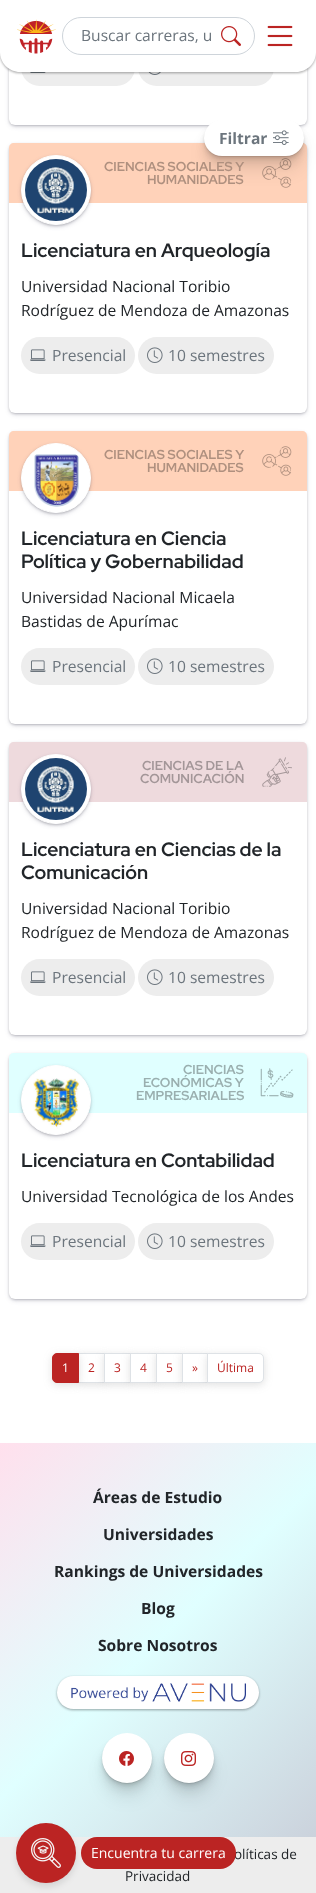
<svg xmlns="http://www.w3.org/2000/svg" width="316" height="1893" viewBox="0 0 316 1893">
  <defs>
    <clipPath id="clip1"><path d="M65 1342H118V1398H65ZM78 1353H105V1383H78Z" clip-rule="evenodd"/></clipPath>
    <linearGradient id="g1" gradientUnits="userSpaceOnUse" x1="-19" y1="1463" x2="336" y2="1818"><stop offset="0" stop-color="rgb(255,224,237)"/><stop offset="0.5" stop-color="rgb(224,255,255)"/><stop offset="1" stop-color="rgb(203,210,220)"/></linearGradient>
  </defs>
  <rect width="100%" height="100%" fill="rgb(255,255,255)"/>
  <rect x="10" y="-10" width="296" height="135" rx="5" fill="rgba(0,0,0,0.3)" filter="blur(1.5px)"/>
  <rect x="10" y="-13" width="296" height="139" rx="5" fill="rgba(50,50,93,0.25)" filter="blur(2.5px)"/>
  <rect x="9" y="-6" width="298" height="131" rx="6" fill="rgb(255,255,255)"/>
  <rect x="21" y="49" width="114" height="37" rx="18.5" fill="rgb(237,237,237)"/>
  <image x="30" y="72" width="16" height="1" href="pic5.png"/>
  <rect x="138" y="49" width="136" height="37" rx="18.5" fill="rgb(237,237,237)"/>
  <image x="148" y="72" width="13" height="3" href="pic6.png"/>
  <rect x="0" y="1" width="316" height="72" rx="20" fill="rgba(0,0,0,0.24)" filter="blur(1px)"/>
  <rect x="0" y="1" width="316" height="72" rx="20" fill="rgba(0,0,0,0.12)" filter="blur(1.5px)"/>
  <path d="M0 0H316V52C316 63 307 72 296 72H20C9 72 0 63 0 52Z" fill="rgb(255,255,255)"/>
  <image x="17" y="19" width="39" height="35" href="pic1.png"/>
  <rect x="62.5" y="17.5" width="192" height="37" rx="18.5" fill="none" stroke="rgb(206,212,218)"/>
  <text x="81" y="41" font-family="Open Sans" font-size="15.6" fill="rgb(108,117,125)">Buscar carreras, u</text>
  <image x="221" y="26" width="20" height="20" href="pic2.png"/>
  <image x="267" y="25" width="26" height="22" href="pic3.png"/>
  <rect x="10" y="145" width="296" height="268" rx="5" fill="rgba(0,0,0,0.3)" filter="blur(1.5px)"/>
  <rect x="10" y="146" width="296" height="268" rx="5" fill="rgba(50,50,93,0.25)" filter="blur(2.5px)"/>
  <rect x="9" y="143" width="298" height="270" rx="6" fill="rgb(255,255,255)"/>
  <path d="M14 143H302C305 143 307 145 307 148V203H9V148C9 145 11 143 14 143Z" fill="rgb(255,210,185)"/>
  <image x="262" y="158" width="30" height="30" href="pic8.png"/>
  <rect x="204" y="136" width="100" height="36" rx="18" fill="rgba(0,0,0,0.07)" filter="blur(8px)"/>
  <rect x="204" y="128" width="100" height="36" rx="18" fill="rgba(0,0,0,0.07)" filter="blur(4px)"/>
  <rect x="204" y="124" width="100" height="36" rx="18" fill="rgba(0,0,0,0.07)" filter="blur(2px)"/>
  <rect x="204" y="122" width="100" height="36" rx="18" fill="rgba(0,0,0,0.07)" filter="blur(1px)"/>
  <rect x="204" y="121" width="100" height="36" rx="18" fill="rgba(0,0,0,0.07)" filter="blur(0.5px)"/>
  <rect x="204" y="120" width="100" height="36" rx="18" fill="rgb(255,255,255)"/>
  <text x="219" y="144" font-family="Open Sans" font-size="15.6" font-weight="bold" fill="rgb(108,117,125)">Filtrar</text>
  <image x="273" y="130" width="16" height="15" href="pic4.png"/>
  <rect x="22" y="158" width="68" height="68" rx="34" fill="rgba(50,50,93,0.25)" filter="blur(2.5px)"/>
  <rect x="22" y="157" width="68" height="68" rx="34" fill="rgba(0,0,0,0.3)" filter="blur(1.5px)"/>
  <circle cx="56" cy="190" r="34.5" fill="rgb(255,255,255)" stroke="rgb(255,255,255)"/>
  <image x="25" y="159" width="62" height="62" href="pic7.png"/>
  <g font-family="Red Hat Display" font-size="13" font-weight="bold" fill="rgb(175,144,127)">
    <text x="104" y="171">CIENCIAS SOCIALES Y</text>
    <text x="147" y="184">HUMANIDADES</text>
  </g>
  <text x="21" y="257" font-family="Red Hat Display" font-size="19.25" font-weight="bold" fill="rgb(33,37,41)">Licenciatura en Arqueología</text>
  <g font-family="Open Sans" font-size="15.6" fill="rgb(33,37,41)">
    <text>
      <tspan x="21" y="292">Universidad Nacional Toribio</tspan>
      <tspan x="21" y="316">Rodríguez de Mendoza de Amazonas</tspan>
    </text>
  </g>
  <rect x="21" y="337" width="114" height="37" rx="18.5" fill="rgb(237,237,237)"/>
  <image x="30" y="349" width="16" height="12" href="pic9.png"/>
  <text x="52" y="361" font-family="Open Sans" font-size="15.6" fill="rgb(108,117,125)">Presencial</text>
  <rect x="138" y="337" width="136" height="37" rx="18.5" fill="rgb(237,237,237)"/>
  <image x="147" y="347" width="16" height="16" href="pic10.png"/>
  <text x="168" y="361" font-family="Open Sans" font-size="15.6" fill="rgb(108,117,125)">10 semestres</text>
  <rect x="10" y="433" width="296" height="291" rx="5" fill="rgba(0,0,0,0.3)" filter="blur(1.5px)"/>
  <rect x="10" y="434" width="296" height="291" rx="5" fill="rgba(50,50,93,0.25)" filter="blur(2.5px)"/>
  <rect x="9" y="431" width="298" height="293" rx="6" fill="rgb(255,255,255)"/>
  <path d="M14 431H302C305 431 307 433 307 436V491H9V436C9 433 11 431 14 431Z" fill="rgb(255,210,185)"/>
  <rect x="22" y="446" width="68" height="68" rx="34" fill="rgba(50,50,93,0.25)" filter="blur(2.5px)"/>
  <rect x="22" y="445" width="68" height="68" rx="34" fill="rgba(0,0,0,0.3)" filter="blur(1.5px)"/>
  <circle cx="56" cy="478" r="34.5" fill="rgb(255,255,255)" stroke="rgb(255,255,255)"/>
  <image x="34" y="454" width="45" height="53" href="pic11.png"/>
  <image x="262" y="446" width="30" height="30" href="pic8.png"/>
  <g font-family="Red Hat Display" font-size="13" font-weight="bold" fill="rgb(175,144,127)">
    <text x="104" y="459">CIENCIAS SOCIALES Y</text>
    <text x="147" y="472">HUMANIDADES</text>
  </g>
  <g font-family="Red Hat Display" font-size="19.25" font-weight="bold" fill="rgb(33,37,41)">
    <text>
      <tspan x="21" y="545">Licenciatura en Ciencia</tspan>
      <tspan x="21" y="568">Política y Gobernabilidad</tspan>
    </text>
  </g>
  <g font-family="Open Sans" font-size="15.6" fill="rgb(33,37,41)">
    <text>
      <tspan x="21" y="603">Universidad Nacional Micaela</tspan>
      <tspan x="21" y="627">Bastidas de Apurímac</tspan>
    </text>
  </g>
  <rect x="21" y="648" width="114" height="37" rx="18.5" fill="rgb(237,237,237)"/>
  <image x="30" y="660" width="16" height="12" href="pic9.png"/>
  <text x="52" y="672" font-family="Open Sans" font-size="15.6" fill="rgb(108,117,125)">Presencial</text>
  <rect x="138" y="648" width="136" height="37" rx="18.5" fill="rgb(237,237,237)"/>
  <image x="147" y="658" width="16" height="16" href="pic10.png"/>
  <text x="168" y="672" font-family="Open Sans" font-size="15.6" fill="rgb(108,117,125)">10 semestres</text>
  <rect x="10" y="744" width="296" height="291" rx="5" fill="rgba(0,0,0,0.3)" filter="blur(1.5px)"/>
  <rect x="10" y="745" width="296" height="291" rx="5" fill="rgba(50,50,93,0.25)" filter="blur(2.5px)"/>
  <rect x="9" y="742" width="298" height="293" rx="6" fill="rgb(255,255,255)"/>
  <path d="M14 742H302C305 742 307 744 307 747V802H9V747C9 744 11 742 14 742Z" fill="rgb(238,218,221)"/>
  <rect x="22" y="757" width="68" height="68" rx="34" fill="rgba(50,50,93,0.25)" filter="blur(2.5px)"/>
  <rect x="22" y="756" width="68" height="68" rx="34" fill="rgba(0,0,0,0.3)" filter="blur(1.5px)"/>
  <circle cx="56" cy="789" r="34.5" fill="rgb(255,255,255)" stroke="rgb(255,255,255)"/>
  <image x="25" y="758" width="62" height="62" href="pic12.png"/>
  <image x="262" y="757" width="30" height="30" href="pic13.png"/>
  <g font-family="Red Hat Display" font-size="13" font-weight="bold" fill="rgb(163,150,152)">
    <text x="142" y="770">CIENCIAS DE LA</text>
    <text x="140" y="783">COMUNICACIÓN</text>
  </g>
  <g font-family="Red Hat Display" font-size="19.25" font-weight="bold" fill="rgb(33,37,41)">
    <text>
      <tspan x="21" y="856">Licenciatura en Ciencias de la</tspan>
      <tspan x="21" y="879">Comunicación</tspan>
    </text>
  </g>
  <g font-family="Open Sans" font-size="15.6" fill="rgb(33,37,41)">
    <text>
      <tspan x="21" y="914">Universidad Nacional Toribio</tspan>
      <tspan x="21" y="938">Rodríguez de Mendoza de Amazonas</tspan>
    </text>
  </g>
  <rect x="21" y="959" width="114" height="37" rx="18.5" fill="rgb(237,237,237)"/>
  <image x="30" y="971" width="16" height="12" href="pic9.png"/>
  <text x="52" y="983" font-family="Open Sans" font-size="15.6" fill="rgb(108,117,125)">Presencial</text>
  <rect x="138" y="959" width="136" height="37" rx="18.5" fill="rgb(237,237,237)"/>
  <image x="147" y="969" width="16" height="16" href="pic10.png"/>
  <text x="168" y="983" font-family="Open Sans" font-size="15.6" fill="rgb(108,117,125)">10 semestres</text>
  <rect x="10" y="1055" width="296" height="244" rx="5" fill="rgba(0,0,0,0.3)" filter="blur(1.5px)"/>
  <rect x="10" y="1056" width="296" height="244" rx="5" fill="rgba(50,50,93,0.25)" filter="blur(2.5px)"/>
  <rect x="9" y="1053" width="298" height="246" rx="6" fill="rgb(255,255,255)"/>
  <path d="M14 1053H302C305 1053 307 1055 307 1058V1113H9V1058C9 1055 11 1053 14 1053Z" fill="rgb(224,255,255)"/>
  <rect x="22" y="1068" width="68" height="68" rx="34" fill="rgba(50,50,93,0.25)" filter="blur(2.5px)"/>
  <rect x="22" y="1067" width="68" height="68" rx="34" fill="rgba(0,0,0,0.3)" filter="blur(1.5px)"/>
  <circle cx="56" cy="1100" r="34.5" fill="rgb(255,255,255)" stroke="rgb(255,255,255)"/>
  <image x="33" y="1078" width="47" height="51" href="pic14.png"/>
  <image x="260" y="1068" width="34" height="30" href="pic15.png"/>
  <g font-family="Red Hat Display" font-size="13" font-weight="bold" fill="rgb(154,175,175)">
    <text x="183" y="1074">CIENCIAS</text>
    <text x="143" y="1087">ECONÓMICAS Y</text>
    <text x="136" y="1100">EMPRESARIALES</text>
  </g>
  <text x="21" y="1167" font-family="Red Hat Display" font-size="19.25" font-weight="bold" fill="rgb(33,37,41)">Licenciatura en Contabilidad</text>
  <text x="21" y="1202" font-family="Open Sans" font-size="15.6" fill="rgb(33,37,41)">Universidad Tecnológica de los Andes</text>
  <rect x="21" y="1223" width="114" height="37" rx="18.5" fill="rgb(237,237,237)"/>
  <image x="30" y="1235" width="16" height="12" href="pic9.png"/>
  <text x="52" y="1247" font-family="Open Sans" font-size="15.6" fill="rgb(108,117,125)">Presencial</text>
  <rect x="138" y="1223" width="136" height="37" rx="18.5" fill="rgb(237,237,237)"/>
  <image x="147" y="1233" width="16" height="16" href="pic10.png"/>
  <text x="168" y="1247" font-family="Open Sans" font-size="15.6" fill="rgb(108,117,125)">10 semestres</text>
  <g clip-path="url(#clip1)">
    <rect x="78" y="1355" width="27" height="30" fill="rgba(99,99,99,0.2)" filter="blur(4px)"/>
  </g>
  <rect x="78.5" y="1353.5" width="26" height="29" fill="none" stroke="rgb(222,226,230)"/>
  <rect x="52" y="1355" width="27" height="30" rx="5" fill="rgba(99,99,99,0.2)" filter="blur(4px)"/>
  <path d="M57 1353.5H78.5V1382.5H57C54.5 1382.5 52.5 1380.5 52.5 1378V1358C52.5 1355.5 54.5 1353.5 57 1353.5Z" fill="rgb(187,36,35)" stroke="rgb(187,36,35)"/>
  <text x="62" y="1372" font-family="Open Sans" font-size="12" fill="rgb(255,255,255)">1</text>
  <text x="88" y="1372" font-family="Open Sans" font-size="12" fill="rgb(187,36,35)">2</text>
  <rect x="104" y="1355" width="27" height="30" fill="rgba(99,99,99,0.2)" filter="blur(4px)"/>
  <rect x="104.5" y="1353.5" width="26" height="29" fill="rgb(255,255,255)" stroke="rgb(222,226,230)"/>
  <text x="114" y="1372" font-family="Open Sans" font-size="12" fill="rgb(187,36,35)">3</text>
  <rect x="130" y="1355" width="27" height="30" fill="rgba(99,99,99,0.2)" filter="blur(4px)"/>
  <rect x="130.5" y="1353.5" width="26" height="29" fill="rgb(255,255,255)" stroke="rgb(222,226,230)"/>
  <text x="140" y="1372" font-family="Open Sans" font-size="12" fill="rgb(187,36,35)">4</text>
  <rect x="156" y="1355" width="27" height="30" fill="rgba(99,99,99,0.2)" filter="blur(4px)"/>
  <rect x="156.5" y="1353.5" width="26" height="29" fill="rgb(255,255,255)" stroke="rgb(222,226,230)"/>
  <text x="166" y="1372" font-family="Open Sans" font-size="12" fill="rgb(187,36,35)">5</text>
  <rect x="182" y="1355" width="26" height="30" fill="rgba(99,99,99,0.2)" filter="blur(4px)"/>
  <rect x="182.5" y="1353.5" width="25" height="29" fill="rgb(255,255,255)" stroke="rgb(222,226,230)"/>
  <text x="192" y="1372" font-family="Open Sans" font-size="12" fill="rgb(187,36,35)">»</text>
  <rect x="207" y="1355" width="57" height="30" rx="5" fill="rgba(99,99,99,0.2)" filter="blur(4px)"/>
  <path d="M207.5 1353.5H259C261.5 1353.5 263.5 1355.5 263.5 1358V1378C263.5 1380.5 261.5 1382.5 259 1382.5H207.5Z" fill="rgb(255,255,255)" stroke="rgb(222,226,230)"/>
  <text x="217" y="1372" font-family="Open Sans" font-size="12" fill="rgb(187,36,35)">Última</text>
  <rect x="0" y="1443" width="316" height="394" fill="url(#g1)"/>
  <g font-family="Open Sans" font-size="15.6" font-weight="bold" fill="rgb(33,37,41)">
    <text x="93" y="1503">Áreas de Estudio</text>
    <text x="103" y="1540">Universidades</text>
    <text x="54" y="1577">Rankings de Universidades</text>
    <text x="141" y="1614">Blog</text>
    <text x="98" y="1651">Sobre Nosotros</text>
  </g>
  <rect x="57" y="1677" width="202" height="33" rx="16.5" fill="rgba(0,0,0,0.24)" filter="blur(1px)"/>
  <rect x="57" y="1677" width="202" height="33" rx="16.5" fill="rgba(0,0,0,0.12)" filter="blur(1.5px)"/>
  <rect x="57" y="1676" width="202" height="33" rx="16.5" fill="rgb(255,255,255)"/>
  <image x="71" y="1683" width="175" height="19" href="pic16.png"/>
  <rect x="102" y="1749" width="50" height="50" rx="25" fill="rgba(0,0,0,0.07)" filter="blur(8px)"/>
  <rect x="102" y="1741" width="50" height="50" rx="25" fill="rgba(0,0,0,0.07)" filter="blur(4px)"/>
  <rect x="102" y="1737" width="50" height="50" rx="25" fill="rgba(0,0,0,0.07)" filter="blur(2px)"/>
  <rect x="102" y="1735" width="50" height="50" rx="25" fill="rgba(0,0,0,0.07)" filter="blur(1px)"/>
  <rect x="102" y="1734" width="50" height="50" rx="25" fill="rgba(0,0,0,0.07)" filter="blur(0.5px)"/>
  <circle cx="127" cy="1758" r="25" fill="rgb(255,255,255)"/>
  <image x="119" y="1751" width="15" height="15" href="pic17.png"/>
  <rect x="164" y="1749" width="50" height="50" rx="25" fill="rgba(0,0,0,0.07)" filter="blur(8px)"/>
  <rect x="164" y="1741" width="50" height="50" rx="25" fill="rgba(0,0,0,0.07)" filter="blur(4px)"/>
  <rect x="164" y="1737" width="50" height="50" rx="25" fill="rgba(0,0,0,0.07)" filter="blur(2px)"/>
  <rect x="164" y="1735" width="50" height="50" rx="25" fill="rgba(0,0,0,0.07)" filter="blur(1px)"/>
  <rect x="164" y="1734" width="50" height="50" rx="25" fill="rgba(0,0,0,0.07)" filter="blur(0.5px)"/>
  <circle cx="189" cy="1758" r="25" fill="rgb(255,255,255)"/>
  <image x="181" y="1751" width="15" height="15" href="pic18.png"/>
  <rect x="0" y="1837" width="316" height="56" fill="rgb(237,237,237)"/>
  <g font-family="Open Sans" font-size="13.5" fill="rgb(33,37,41)">
    <text x="234" y="1859">olíticas de</text>
    <text x="125" y="1881">Privacidad</text>
  </g>
  <rect x="16" y="1827" width="60" height="60" rx="30" fill="rgba(0,0,0,0.1)" filter="blur(3px)"/>
  <circle cx="46" cy="1853" r="30" fill="rgb(187,36,35)"/>
  <image x="31" y="1838" width="30" height="30" href="pic19.png"/>
  <rect x="81" y="1837" width="155" height="32" rx="16" fill="rgb(187,36,35)"/>
  <text x="91" y="1858" font-family="Open Sans" font-size="14" fill="rgb(255,255,255)">Encuentra tu carrera</text>
</svg>
